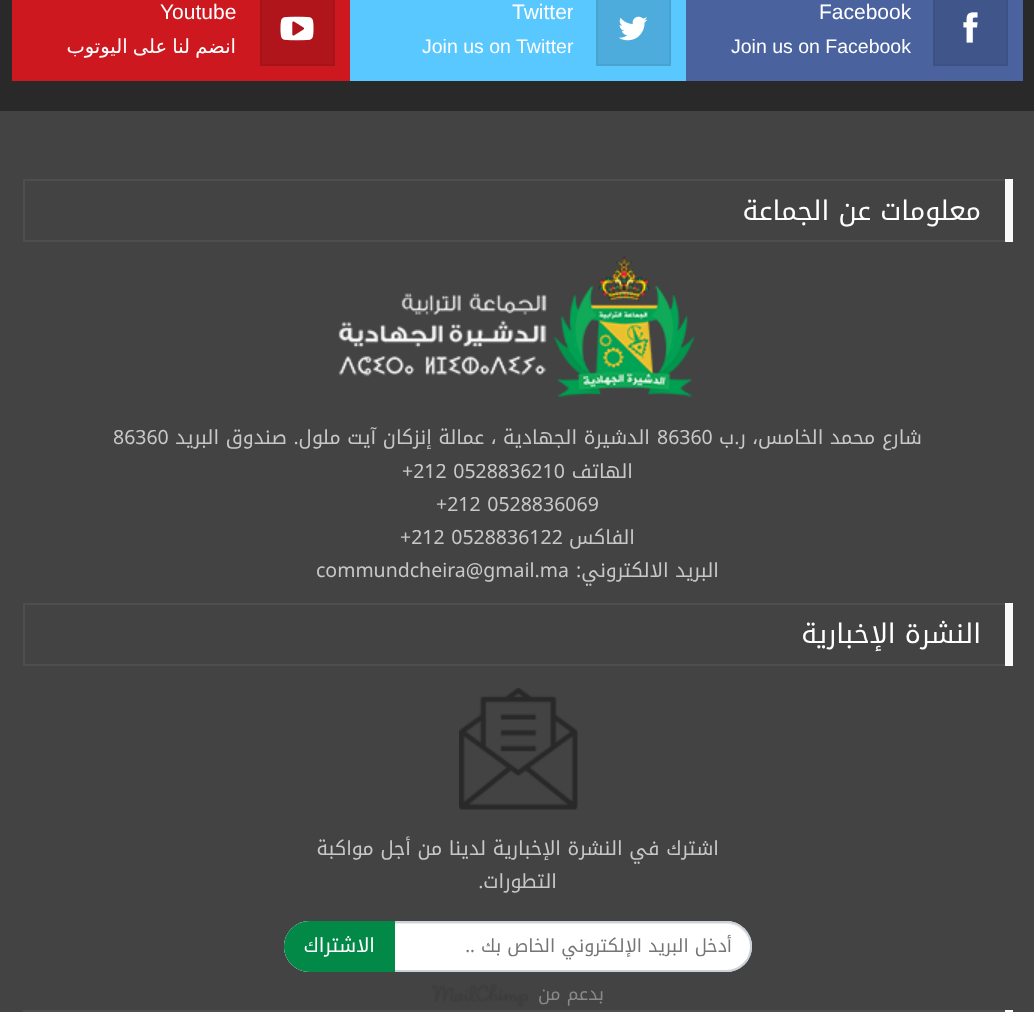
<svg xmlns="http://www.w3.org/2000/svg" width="1034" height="1012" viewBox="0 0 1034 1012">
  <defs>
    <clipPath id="clip1"><rect x="365" y="0" width="208" height="30"/></clipPath>
  </defs>
  <rect width="100%" height="100%" fill="rgb(67,67,67)"/>
  <rect x="0" y="0" width="1034" height="111" fill="rgb(41,41,41)"/>
  <rect x="686" y="0" width="337" height="81" fill="rgb(74,99,159)"/>
  <rect x="934" y="-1" width="73" height="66" fill="rgb(64,85,137)" stroke="rgb(61,81,130)" stroke-width="2"/>
  <image x="963" y="12" width="15" height="31" href="pic1.png"/>
  <text x="819" y="19" font-family="Liberation Sans" font-size="21" fill="rgb(255,255,255)">Facebook</text>
  <text x="731" y="53" font-family="Liberation Sans" font-size="19.5" fill="rgb(255,255,255)">Join us on Facebook</text>
  <rect x="350" y="0" width="336" height="81" fill="rgb(89,200,255)"/>
  <rect x="597" y="-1" width="73" height="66" fill="rgb(77,172,219)" stroke="rgb(73,163,208)" stroke-width="2"/>
  <image x="618" y="16" width="30" height="25" href="pic2.png"/>
  <g clip-path="url(#clip1)">
    <text x="512" y="19" font-family="Liberation Sans" font-size="21" fill="rgb(255,255,255)">Twitter</text>
  </g>
  <text x="422" y="53" font-family="Liberation Sans" font-size="19.5" fill="rgb(255,255,255)">Join us on Twitter</text>
  <rect x="12" y="0" width="338" height="81" fill="rgb(204,24,30)"/>
  <rect x="261" y="-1" width="73" height="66" fill="rgb(175,21,26)" stroke="rgb(166,20,25)" stroke-width="2"/>
  <image x="280" y="16" width="34" height="25" href="pic3.png"/>
  <text x="160" y="19" font-family="Liberation Sans" font-size="21" fill="rgb(255,255,255)">Youtube</text>
  <text x="236" y="53" word-spacing="-1" font-family="DejaVu Sans" font-size="19.5" direction="rtl" fill="rgb(255,255,255)">انضم لنا على اليوتوب</text>
  <rect x="24" y="180" width="988" height="61" fill="none" stroke="rgb(78,78,78)" stroke-width="2"/>
  <rect x="1005" y="179" width="8" height="63" fill="rgb(249,249,249)"/>
  <text x="981" y="220" font-family="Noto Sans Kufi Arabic" font-size="27" direction="rtl" fill="rgb(255,255,255)">معلومات عن الجماعة</text>
  <image x="338" y="256" width="357" height="142" href="pic4.png"/>
  <text x="922" y="444" font-family="Noto Kufi Arabic" font-size="19.5" direction="rtl" fill="rgb(200,200,200)">شارع محمد الخامس، ر.ب</text>
  <text x="657" y="444" font-family="Noto Kufi Arabic" font-size="19.5" fill="rgb(200,200,200)">86360</text>
  <text x="650" y="444" font-family="Noto Kufi Arabic" font-size="19.5" direction="rtl" fill="rgb(200,200,200)">الدشيرة الجهادية ، عمالة إنزكان آيت ملول. صندوق البريد</text>
  <text x="113" y="444" font-family="Noto Kufi Arabic" font-size="19.5" fill="rgb(200,200,200)">86360</text>
  <text x="633" y="478" font-family="Noto Kufi Arabic" font-size="19.5" direction="rtl" fill="rgb(200,200,200)">الهاتف</text>
  <g font-family="Noto Kufi Arabic" font-size="19.5" fill="rgb(200,200,200)">
    <text x="402" y="478">+212 0528836210</text>
    <text x="436" y="511">+212 0528836069</text>
  </g>
  <text x="635" y="544" font-family="Noto Kufi Arabic" font-size="19.5" direction="rtl" fill="rgb(200,200,200)">الفاكس</text>
  <text x="400" y="544" font-family="Noto Kufi Arabic" font-size="19.5" fill="rgb(200,200,200)">+212 0528836122</text>
  <text x="719" y="577" font-family="Noto Kufi Arabic" font-size="19.5" direction="rtl" fill="rgb(200,200,200)">البريد الالكتروني:</text>
  <text x="316" y="577" font-family="Noto Kufi Arabic" font-size="19.5" fill="rgb(200,200,200)">commundcheira@gmail.ma</text>
  <rect x="24" y="604" width="988" height="61" fill="none" stroke="rgb(78,78,78)" stroke-width="2"/>
  <rect x="1005" y="603" width="8" height="63" fill="rgb(249,249,249)"/>
  <text x="981" y="643" font-family="Noto Sans Kufi Arabic" font-size="27" direction="rtl" fill="rgb(255,255,255)">النشرة الإخبارية</text>
  <image x="459" y="688" width="119" height="122" href="pic5.png"/>
  <g font-family="Noto Kufi Arabic" font-size="19.5" direction="rtl" fill="rgb(200,200,200)">
    <text x="719" y="855">اشترك في النشرة الإخبارية لدينا من أجل مواكبة</text>
    <text x="557" y="888">التطورات.</text>
  </g>
  <rect x="284" y="921" width="468" height="51" rx="25.5" fill="rgb(255,255,255)"/>
  <path d="M309 924H726C739 924 750 935 750 948C750 934 739 923 726 923H309C296 923 285 934 285 948C285 935 296 924 309 924Z" fill="rgb(236,236,236)"/>
  <rect x="285" y="922" width="466" height="49" rx="24.5" fill="none" stroke="rgb(203,209,216)" stroke-width="2"/>
  <text x="732" y="952" font-family="Noto Kufi Arabic" font-size="18" direction="rtl" fill="rgb(117,117,117)">أدخل البريد الإلكتروني الخاص بك ..</text>
  <path d="M309.5 921H395V972H309.5C295.5 972 284 960.5 284 946.5C284 932.5 295.5 921 309.5 921Z" fill="rgb(3,137,71)"/>
  <text x="375" y="952" font-family="Noto Sans Kufi Arabic" font-size="19.5" direction="rtl" fill="rgb(255,255,255)">الاشتراك</text>
  <text x="604" y="1000" font-family="Noto Kufi Arabic" font-size="18" direction="rtl" fill="rgb(137,137,137)">بدعم من</text>
  <image x="432" y="984" width="96" height="23" href="pic6.png"/>
  <rect x="24" y="1011" width="988" height="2" fill="none" stroke="rgb(78,78,78)" stroke-width="2"/>
  <rect x="1005" y="1010" width="8" height="2" fill="rgb(249,249,249)"/>
</svg>
